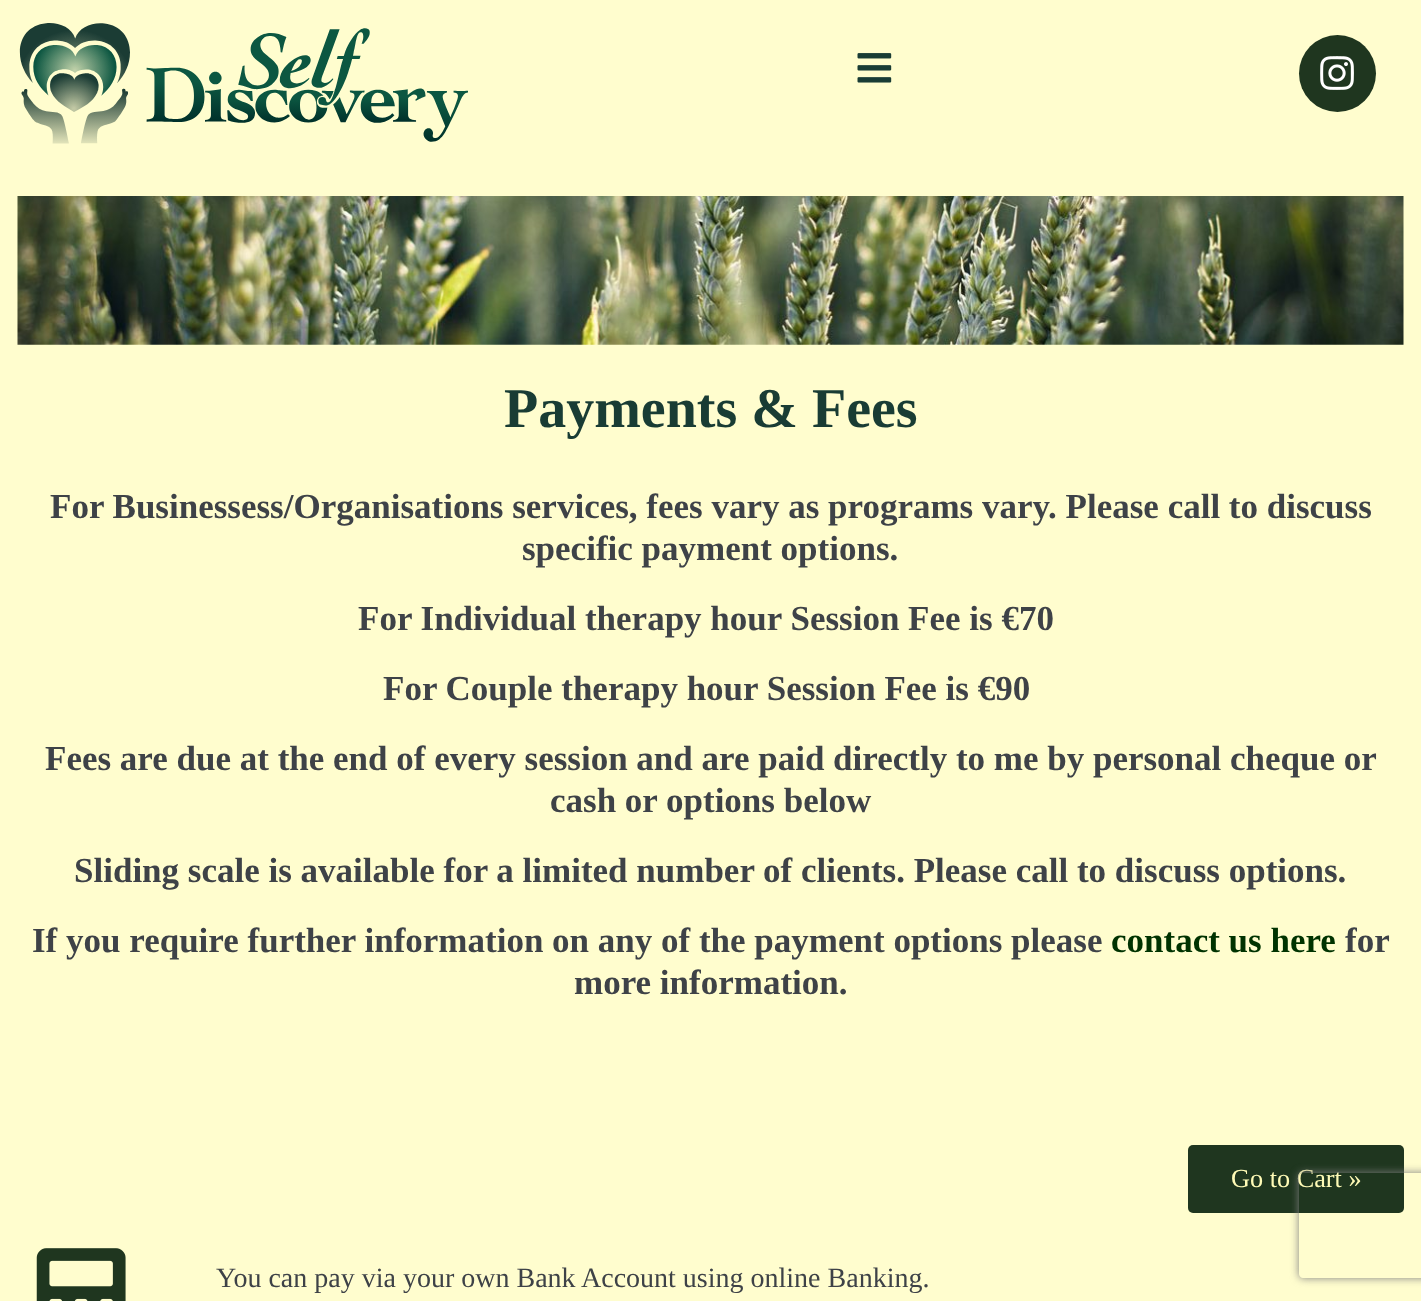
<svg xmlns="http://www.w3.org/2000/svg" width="1421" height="1301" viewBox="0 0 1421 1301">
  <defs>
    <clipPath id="clip1"><path d="M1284 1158H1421V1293H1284ZM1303 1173H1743C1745 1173 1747 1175 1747 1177V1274C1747 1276 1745 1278 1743 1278H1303C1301 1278 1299 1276 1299 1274V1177C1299 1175 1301 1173 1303 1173Z" clip-rule="evenodd"/></clipPath>
  </defs>
  <rect width="100%" height="100%" fill="rgb(255,253,206)"/>
  <image x="19" y="23" width="449" height="121" href="pic1.png"/>
  <image x="857" y="53" width="35" height="30" href="pic2.png"/>
  <circle cx="1337.5" cy="73.5" r="38.5" fill="rgb(31,54,31)"/>
  <image x="1320" y="56" width="34" height="34" href="pic3.png"/>
  <image x="17" y="196" width="1387" height="149" href="pic4.png"/>
  <text x="504" y="427" font-family="Liberation Serif" font-size="56" font-weight="bold" fill="rgb(25,60,52)">Payments &amp; Fees</text>
  <g font-family="Liberation Serif" font-size="35" font-weight="bold" fill="rgb(62,66,71)">
    <text x="50" y="518">For Businessess/Organisations services, fees vary as programs vary. Please call to discuss</text>
    <text x="522" y="560">specific payment options.</text>
    <text x="358" y="630">For Individual therapy hour Session Fee is €70</text>
    <text x="383" y="700">For Couple therapy hour Session Fee is €90</text>
    <text x="45" y="770">Fees are due at the end of every session and are paid directly to me by personal cheque or</text>
    <text x="550" y="812">cash or options below</text>
    <text x="74" y="882">Sliding scale is available for a limited number of clients. Please call to discuss options.</text>
    <text x="32" y="952">If you require further information on any of the payment options please</text>
  </g>
  <text x="1111" y="952" font-family="Liberation Serif" font-size="35" font-weight="bold" fill="rgb(0,51,0)">contact us here</text>
  <g font-family="Liberation Serif" font-size="35" font-weight="bold" fill="rgb(62,66,71)">
    <text x="1345" y="952">for</text>
    <text x="574" y="994">more information.</text>
  </g>
  <rect x="1188" y="1145" width="216" height="68" rx="5" fill="rgb(31,54,31)"/>
  <text x="1231" y="1187" font-family="Liberation Serif" font-size="26.25" fill="rgb(255,251,183)">Go to Cart »</text>
  <image x="36" y="1248" width="90" height="53" href="pic5.png"/>
  <text x="216" y="1287" font-family="Liberation Serif" font-size="28" fill="rgb(62,66,71)">You can pay via your own Bank Account using online Banking.</text>
  <g clip-path="url(#clip1)">
    <rect x="1299" y="1173" width="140" height="105" rx="4" fill="rgb(128,128,128)" filter="blur(4.5px)"/>
  </g>
</svg>
